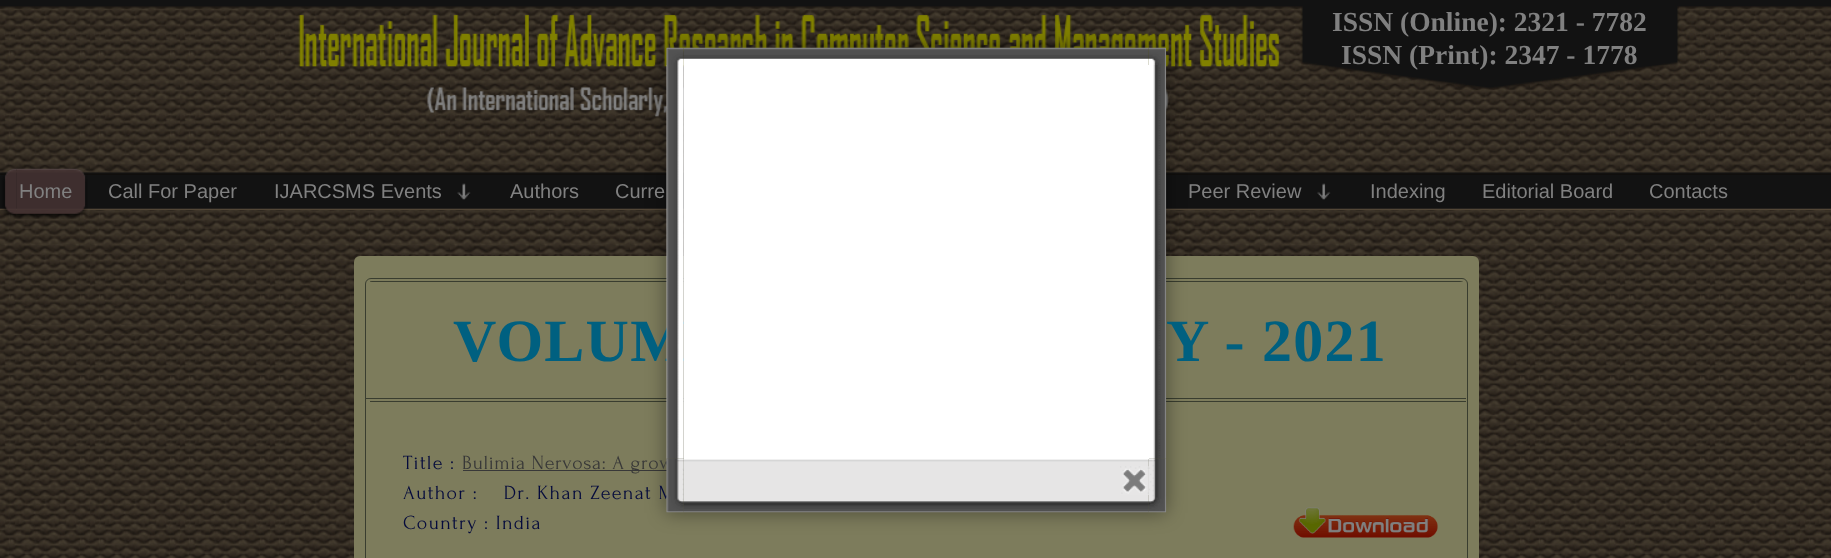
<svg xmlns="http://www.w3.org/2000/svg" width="1831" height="558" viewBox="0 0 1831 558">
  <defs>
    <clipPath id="clip1"><rect x="366" y="281" width="1100" height="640" rx="6"/></clipPath>
  </defs>
  <rect width="100%" height="100%" fill="rgb(255,255,255)"/>
  <image x="0" y="6" width="1831" height="552" href="pic1.png"/>
  <image x="0" y="0" width="1831" height="210" href="pic11.png"/>
  <image x="298" y="14" width="982" height="103" href="pic12.png"/>
  <rect x="354" y="256" width="1125" height="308" rx="6" fill="rgb(125,124,92)"/>
  <rect x="365.5" y="278.5" width="1102" height="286" rx="5.5" fill="none" stroke="rgb(57,61,47)"/>
  <g clip-path="url(#clip1)">
    <rect x="370" y="281" width="1096" height="1" fill="rgb(57,61,47)"/>
  </g>
  <rect x="366" y="398" width="1100" height="1" fill="rgb(57,61,47)"/>
  <rect x="370" y="401" width="1096" height="1" fill="rgb(57,61,47)"/>
  <rect x="463" y="470" width="221" height="1" fill="rgb(56,56,56)"/>
  <rect x="666" y="48" width="500" height="465" fill="rgba(0,0,0,0.4)" filter="blur(9.5px)"/>
  <image x="666" y="47" width="18" height="18" href="pic2.png"/>
  <image x="683" y="47" width="466" height="18" href="pic3.png"/>
  <image x="1148" y="47" width="19" height="18" href="pic4.png"/>
  <text x="453" y="361" font-family="Liberation Serif" font-size="60" font-weight="bold" letter-spacing="1.25" fill="rgb(0,96,128)">VOLUM</text>
  <text x="462" y="469" font-family="Forum" font-size="20" letter-spacing="0.6" fill="rgb(56,56,56)">Bulimia Nervosa: A grow</text>
  <image x="666" y="65" width="18" height="394" href="pic5.png"/>
  <text x="403" y="499" font-family="Forum" font-size="20" letter-spacing="1.25" fill="rgb(4,10,60)" xml:space="preserve">Author :    Dr. Khan Zeenat M</text>
  <image x="666" y="458" width="18" height="55" href="pic8.png"/>
  <image x="683" y="458" width="466" height="55" href="pic9.png"/>
  <image x="1149" y="65" width="18" height="394" href="pic7.png"/>
  <image x="1148" y="458" width="19" height="55" href="pic10.png"/>
  <rect x="684" y="65" width="465" height="394" fill="rgb(255,255,255)"/>
  <image x="1120" y="466" width="29" height="29" href="pic6.png"/>
  <image x="1301" y="6" width="378" height="85" href="pic13.png"/>
  <g font-family="Liberation Serif" font-size="27.5" font-weight="bold" fill="rgb(128,128,128)">
    <text x="1332" y="31">ISSN (Online): 2321 - 7782</text>
    <text x="1341" y="64">ISSN (Print): 2347 - 1778</text>
  </g>
  <image x="0" y="168" width="17" height="51" href="pic14.png"/>
  <image x="16" y="168" width="72" height="51" href="pic15.png"/>
  <g font-family="Liberation Sans" font-size="20" fill="rgb(128,128,128)">
    <text x="108" y="198">Call For Paper</text>
    <text x="510" y="198">Authors</text>
  </g>
  <image x="1317" y="183" width="14" height="17" href="pic16.png"/>
  <g font-family="Liberation Sans" font-size="20" fill="rgb(128,128,128)">
    <text x="1188" y="198">Peer Review</text>
    <text x="1370" y="198">Indexing</text>
    <text x="1482" y="198">Editorial Board</text>
    <text x="19" y="198">Home</text>
  </g>
  <image x="457" y="183" width="14" height="17" href="pic17.png"/>
  <g font-family="Liberation Sans" font-size="20" fill="rgb(128,128,128)">
    <text x="274" y="198">IJARCSMS Events</text>
    <text x="615" y="198">Curre</text>
    <text x="1649" y="198">Contacts</text>
  </g>
  <text x="1166" y="361" font-family="Liberation Serif" font-size="60" font-weight="bold" letter-spacing="1.25" fill="rgb(0,96,128)">Y - 2021</text>
  <g font-family="Forum" font-size="20" letter-spacing="1.25" fill="rgb(4,10,60)">
    <text x="403" y="469">Title :</text>
    <text x="403" y="529">Country : India</text>
  </g>
  <image x="1293" y="507" width="145" height="31" href="pic18.png"/>
</svg>
